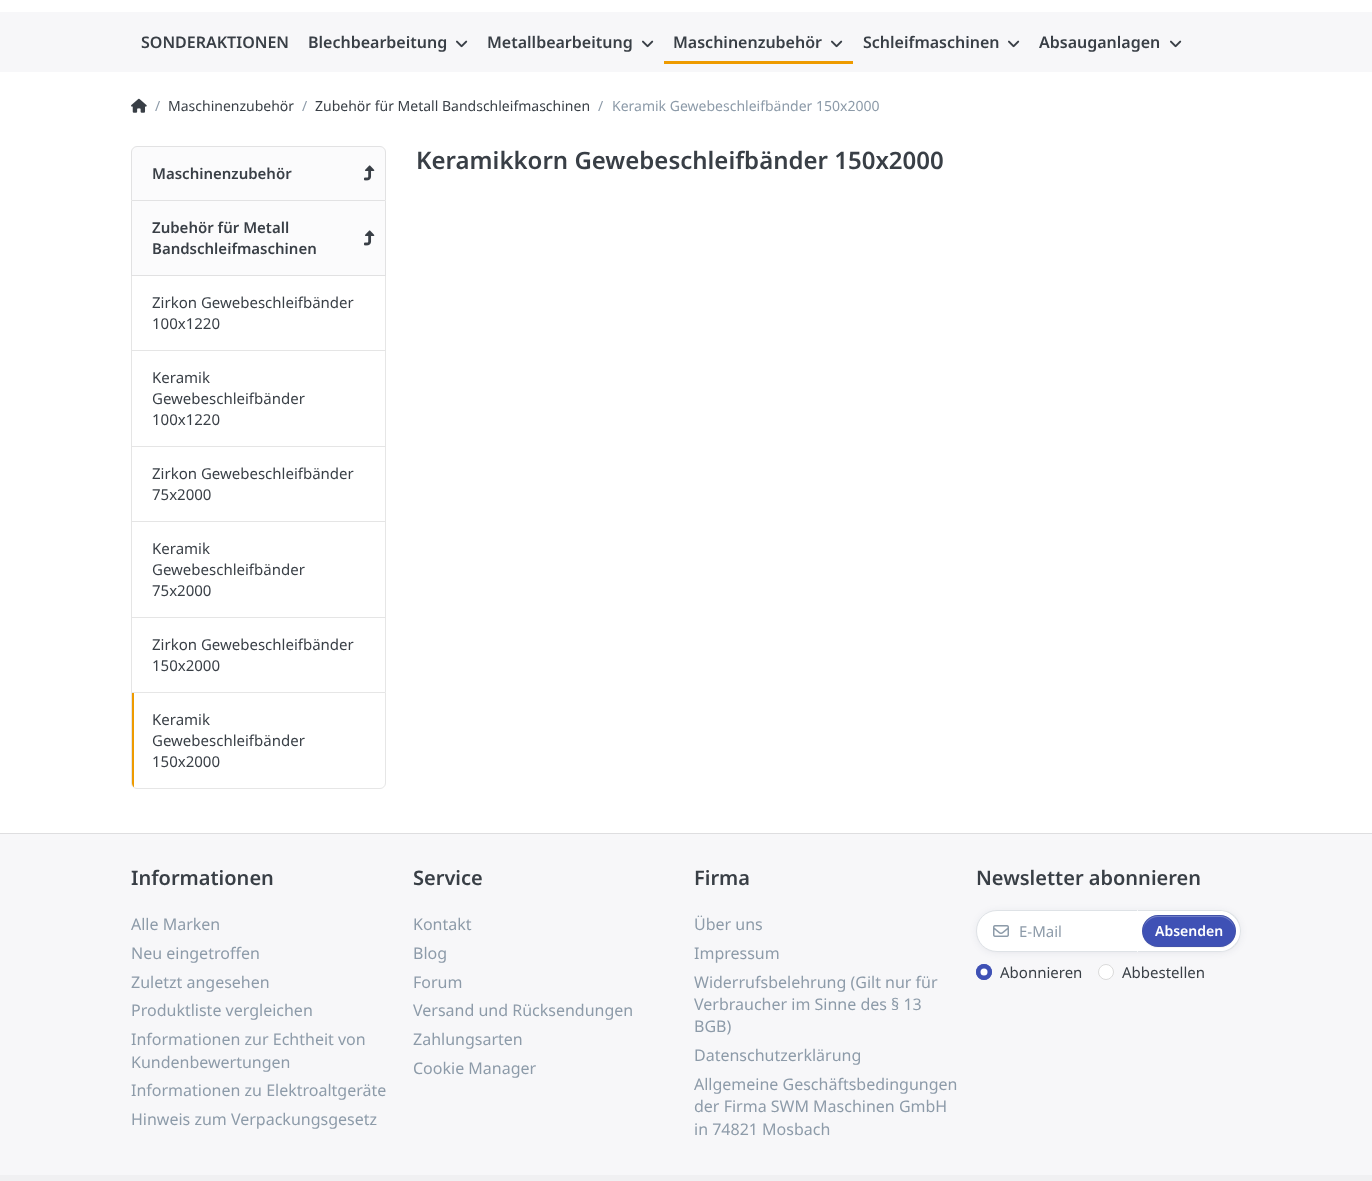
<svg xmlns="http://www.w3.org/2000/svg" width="1372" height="1181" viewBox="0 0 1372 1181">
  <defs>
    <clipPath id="clip1"><path d="M132 693H385V783C385 786 383 788 380 788H137C134 788 132 786 132 783Z"/></clipPath>
  </defs>
  <rect width="100%" height="100%" fill="rgb(255,255,255)"/>
  <rect x="0" y="12" width="1372" height="60" fill="rgb(247,247,249)"/>
  <g font-family="Noto Sans" font-size="16" font-weight="600" fill="rgb(57,63,70)">
    <text x="141" y="48">SONDERAKTIONEN</text>
    <text x="308" y="48">Blechbearbeitung</text>
  </g>
  <image x="456" y="40" width="12" height="8" href="pic1.png"/>
  <text x="487" y="48" font-family="Noto Sans" font-size="16" font-weight="600" fill="rgb(57,63,70)">Metallbearbeitung</text>
  <image x="642" y="40" width="12" height="8" href="pic1.png"/>
  <text x="673" y="48" font-family="Noto Sans" font-size="16" font-weight="600" fill="rgb(57,63,70)">Maschinenzubehör</text>
  <image x="831" y="40" width="12" height="8" href="pic1.png"/>
  <rect x="664" y="61" width="189" height="3" fill="rgb(238,155,0)"/>
  <text x="863" y="48" font-family="Noto Sans" font-size="16" font-weight="600" fill="rgb(57,63,70)">Schleifmaschinen</text>
  <image x="1008" y="40" width="12" height="8" href="pic1.png"/>
  <text x="1039" y="48" font-family="Noto Sans" font-size="16" font-weight="600" fill="rgb(57,63,70)">Absauganlagen</text>
  <image x="1170" y="40" width="12" height="8" href="pic1.png"/>
  <image x="131" y="98" width="16" height="15" href="pic2.png"/>
  <text x="155" y="111" font-family="Noto Sans" font-size="14" fill="rgb(141,155,169)">/</text>
  <text x="168" y="111" font-family="Noto Sans" font-size="14" fill="rgb(57,63,70)">Maschinenzubehör</text>
  <text x="302" y="111" font-family="Noto Sans" font-size="14" fill="rgb(141,155,169)">/</text>
  <text x="315" y="111" font-family="Noto Sans" font-size="14" fill="rgb(57,63,70)">Zubehör für Metall Bandschleifmaschinen</text>
  <g font-family="Noto Sans" font-size="14" fill="rgb(141,155,169)">
    <text x="598" y="111">/</text>
    <text x="612" y="111">Keramik Gewebeschleifbänder 150x2000</text>
  </g>
  <text x="416" y="169" font-family="Noto Sans" font-size="24" font-weight="600" fill="rgb(57,63,70)">Keramikkorn Gewebeschleifbänder 150x2000</text>
  <path d="M137 146.5H380C383 146.5 385.5 149 385.5 152V200.5H131.5V152C131.5 149 134 146.5 137 146.5Z" fill="rgb(251,251,252)" stroke="rgb(226,226,227)"/>
  <text x="152" y="179" font-family="Noto Sans" font-size="15" font-weight="600" fill="rgb(57,63,70)">Maschinenzubehör</text>
  <image x="364" y="165" width="11" height="16" href="pic3.png"/>
  <rect x="131" y="201" width="255" height="75" fill="rgb(251,251,252)"/>
  <path d="M386 201V276L385 275V201Z" fill="rgb(226,226,227)"/>
  <path d="M386 276H131L132 275H385Z" fill="rgba(0,0,0,0.1)"/>
  <path d="M131 276V201H132V275Z" fill="rgba(0,0,0,0.1)"/>
  <text x="152" y="233" font-family="Noto Sans" font-size="15" font-weight="600" fill="rgb(57,63,70)">Zubehör für Metall</text>
  <image x="364" y="230" width="11" height="16" href="pic3.png"/>
  <text x="152" y="254" font-family="Noto Sans" font-size="15" font-weight="600" fill="rgb(57,63,70)">Bandschleifmaschinen</text>
  <path d="M386 276V351L385 350V276Z" fill="rgb(230,230,230)"/>
  <path d="M386 351H131L132 350H385Z" fill="rgba(0,0,0,0.1)"/>
  <path d="M131 351V276H132V350Z" fill="rgba(0,0,0,0.1)"/>
  <g font-family="Noto Sans" font-size="15" fill="rgb(57,63,70)">
    <text>
      <tspan x="152" y="308">Zirkon Gewebeschleifbänder</tspan>
      <tspan x="152" y="329">100x1220</tspan>
    </text>
  </g>
  <path d="M386 351V447L385 446V351Z" fill="rgb(230,230,230)"/>
  <path d="M386 447H131L132 446H385Z" fill="rgba(0,0,0,0.1)"/>
  <path d="M131 447V351H132V446Z" fill="rgba(0,0,0,0.1)"/>
  <g font-family="Noto Sans" font-size="15" fill="rgb(57,63,70)">
    <text>
      <tspan x="152" y="383">Keramik</tspan>
      <tspan x="152" y="404">Gewebeschleifbänder</tspan>
      <tspan x="152" y="425">100x1220</tspan>
    </text>
  </g>
  <path d="M386 447V522L385 521V447Z" fill="rgb(230,230,230)"/>
  <path d="M386 522H131L132 521H385Z" fill="rgba(0,0,0,0.1)"/>
  <path d="M131 522V447H132V521Z" fill="rgba(0,0,0,0.1)"/>
  <g font-family="Noto Sans" font-size="15" fill="rgb(57,63,70)">
    <text>
      <tspan x="152" y="479">Zirkon Gewebeschleifbänder</tspan>
      <tspan x="152" y="500">75x2000</tspan>
    </text>
  </g>
  <path d="M386 522V618L385 617V522Z" fill="rgb(230,230,230)"/>
  <path d="M386 618H131L132 617H385Z" fill="rgba(0,0,0,0.1)"/>
  <path d="M131 618V522H132V617Z" fill="rgba(0,0,0,0.1)"/>
  <g font-family="Noto Sans" font-size="15" fill="rgb(57,63,70)">
    <text>
      <tspan x="152" y="554">Keramik</tspan>
      <tspan x="152" y="575">Gewebeschleifbänder</tspan>
      <tspan x="152" y="596">75x2000</tspan>
    </text>
  </g>
  <path d="M386 618V693L385 692V618Z" fill="rgb(230,230,230)"/>
  <path d="M131 693V618H132V692Z" fill="rgba(0,0,0,0.1)"/>
  <g font-family="Noto Sans" font-size="15" fill="rgb(57,63,70)">
    <text>
      <tspan x="152" y="650">Zirkon Gewebeschleifbänder</tspan>
      <tspan x="152" y="671">150x2000</tspan>
    </text>
  </g>
  <path d="M131.5 692.5H385.5V783C385.5 786 383 788.5 380 788.5H137C134 788.5 131.5 786 131.5 783Z" fill="rgb(255,255,255)" stroke="rgb(230,230,230)"/>
  <g clip-path="url(#clip1)">
    <rect x="132" y="693" width="2" height="95" fill="rgb(238,155,0)"/>
  </g>
  <g font-family="Noto Sans" font-size="15" fill="rgb(57,63,70)">
    <text>
      <tspan x="152" y="725">Keramik</tspan>
      <tspan x="152" y="746">Gewebeschleifbänder</tspan>
      <tspan x="152" y="767">150x2000</tspan>
    </text>
  </g>
  <rect x="0" y="834" width="1372" height="341" fill="rgb(247,247,249)"/>
  <rect x="0" y="833" width="1372" height="1" fill="rgb(222,222,224)"/>
  <text x="131" y="885" font-family="Noto Sans" font-size="20" font-weight="600" fill="rgb(57,63,70)">Informationen</text>
  <g font-family="Noto Sans" font-size="16" fill="rgb(141,155,169)">
    <text>
      <tspan x="131" y="930">Alle Marken</tspan>
      <tspan x="131" y="959">Neu eingetroffen</tspan>
      <tspan x="131" y="988">Zuletzt angesehen</tspan>
      <tspan x="131" y="1016">Produktliste vergleichen</tspan>
      <tspan x="131" y="1045">Informationen zur Echtheit von</tspan>
      <tspan x="131" y="1068">Kundenbewertungen</tspan>
      <tspan x="131" y="1096">Informationen zu Elektroaltgeräte</tspan>
      <tspan x="131" y="1125">Hinweis zum Verpackungsgesetz</tspan>
    </text>
  </g>
  <text x="413" y="885" font-family="Noto Sans" font-size="20" font-weight="600" fill="rgb(57,63,70)">Service</text>
  <g font-family="Noto Sans" font-size="16" fill="rgb(141,155,169)">
    <text>
      <tspan x="413" y="930">Kontakt</tspan>
      <tspan x="413" y="959">Blog</tspan>
      <tspan x="413" y="988">Forum</tspan>
      <tspan x="413" y="1016">Versand und Rücksendungen</tspan>
      <tspan x="413" y="1045">Zahlungsarten</tspan>
      <tspan x="413" y="1074">Cookie Manager</tspan>
    </text>
  </g>
  <text x="694" y="885" font-family="Noto Sans" font-size="20" font-weight="600" fill="rgb(57,63,70)">Firma</text>
  <g font-family="Noto Sans" font-size="16" fill="rgb(141,155,169)">
    <text>
      <tspan x="694" y="930">Über uns</tspan>
      <tspan x="694" y="959">Impressum</tspan>
      <tspan x="694" y="988">Widerrufsbelehrung (Gilt nur für</tspan>
      <tspan x="694" y="1010">Verbraucher im Sinne des § 13</tspan>
      <tspan x="694" y="1032">BGB)</tspan>
      <tspan x="694" y="1061">Datenschutzerklärung</tspan>
      <tspan x="694" y="1090">Allgemeine Geschäftsbedingungen</tspan>
      <tspan x="694" y="1112">der Firma SWM Maschinen GmbH</tspan>
      <tspan x="694" y="1135">in 74821 Mosbach</tspan>
    </text>
  </g>
  <text x="976" y="885" font-family="Noto Sans" font-size="20" font-weight="600" fill="rgb(57,63,70)">Newsletter abonnieren</text>
  <rect x="978" y="913" width="261" height="38" rx="19" fill="rgba(26,33,75,0.12)" filter="blur(4px)"/>
  <path d="M997 910.5H1137.5V951.5H997C985.5 951.5 976.5 942.5 976.5 931C976.5 919.5 985.5 910.5 997 910.5Z" fill="rgb(255,255,255)" stroke="rgb(222,226,230)"/>
  <image x="993" y="925" width="16" height="12" href="pic4.png"/>
  <text x="1019" y="937" font-family="Noto Sans" font-size="15" fill="rgb(141,155,169)">E-Mail</text>
  <path d="M1137 910H1220C1231.5 910 1241 919.5 1241 931C1241 942.5 1231.5 952 1220 952H1137Z" fill="rgb(255,255,255)"/>
  <path d="M1137 910L1138 911H1220C1226 911 1230 913 1234 917L1235 916C1231 912 1226 910 1220 910Z" fill="rgb(222,226,230)"/>
  <path d="M1235 916C1243 924 1243 938 1235 946L1234 945C1242 937.5 1242 924.5 1234 917Z" fill="rgb(222,226,230)"/>
  <path d="M1220 952C1226 952 1231 950 1235 946L1234 945C1230 949 1226 951 1220 951H1138L1137 952Z" fill="rgb(222,226,230)"/>
  <path d="M1137 910V952L1138 951V911Z" fill="rgb(255,255,255)"/>
  <path d="M1142 932C1142 939 1147 946 1155 948H1223C1231 946 1236 939 1236 932C1236 940 1229 947 1220 947H1158C1149 947 1142 940 1142 932Z" fill="rgb(246,246,246)"/>
  <rect x="1142" y="915" width="94" height="32" rx="16" fill="rgb(63,81,181)"/>
  <path d="M1158 917H1220C1228 917 1235 924 1235 932C1235 924 1230 918 1223 916H1155C1148 918 1143 924 1143 932C1143 924 1150 917 1158 917Z" fill="rgb(111,125,200)"/>
  <rect x="1142.5" y="915.5" width="93" height="31" rx="15.5" fill="none" stroke="rgba(89,97,103,0.15)"/>
  <text x="1155" y="936" font-family="Noto Sans" font-size="14" font-weight="600" fill="rgb(255,255,255)">Absenden</text>
  <circle cx="984" cy="972" r="8" fill="rgb(63,81,181)"/>
  <circle cx="984" cy="972" r="3.5" fill="rgb(255,255,255)"/>
  <circle cx="984" cy="972" r="7.5" fill="none" stroke="rgb(63,81,181)"/>
  <text x="1000" y="978" font-family="Noto Sans" font-size="15" fill="rgb(57,63,70)">Abonnieren</text>
  <circle cx="1106" cy="972" r="8" fill="rgb(255,255,255)"/>
  <circle cx="1106" cy="972" r="7.5" fill="none" stroke="rgba(0,0,0,0.15)"/>
  <text x="1122" y="978" font-family="Noto Sans" font-size="15" fill="rgb(57,63,70)">Abbestellen</text>
  <rect x="0" y="1175" width="1372" height="6" fill="rgb(240,240,242)"/>
</svg>
